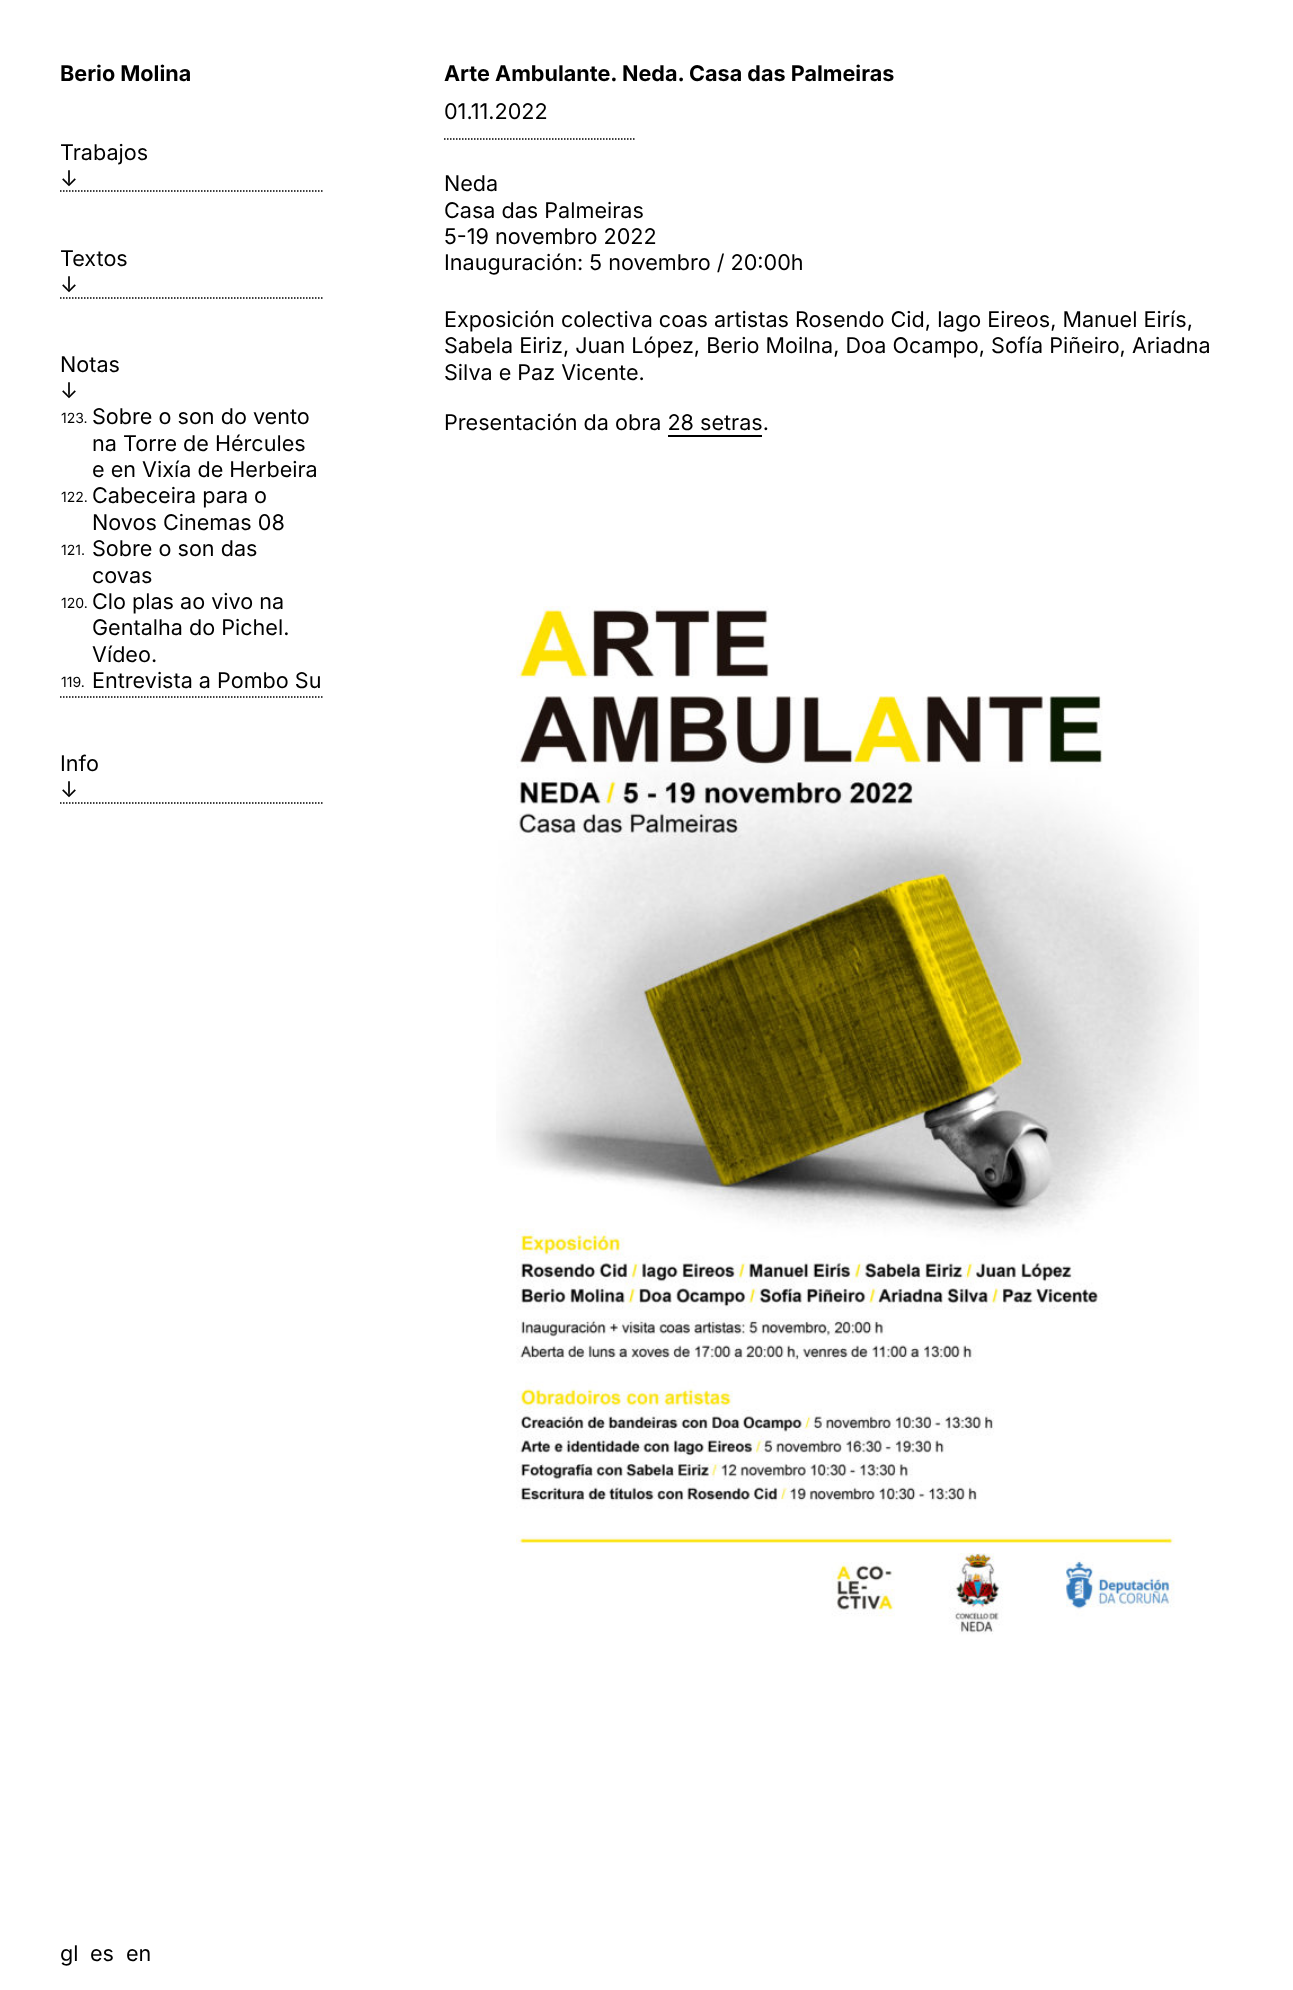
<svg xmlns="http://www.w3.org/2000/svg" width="1293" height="1990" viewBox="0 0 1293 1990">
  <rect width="100%" height="100%" fill="rgb(255,255,255)"/>
  <text x="60" y="81" font-family="Inter" font-size="21.6" font-weight="bold" fill="rgb(0,0,0)">Berio Molina</text>
  <g font-family="Inter" font-size="21.6" fill="rgb(0,0,0)">
    <text>
      <tspan x="60" y="160">Trabajos</tspan>
      <tspan x="60" y="186">↓</tspan>
    </text>
  </g>
  <path d="M60 191H324" fill="none" stroke="rgb(0,0,0)" stroke-width="1.5" stroke-dasharray="1.5 1.5"/>
  <g font-family="Inter" font-size="21.6" fill="rgb(0,0,0)">
    <text>
      <tspan x="60" y="266">Textos</tspan>
      <tspan x="60" y="292">↓</tspan>
    </text>
  </g>
  <path d="M60 298H324" fill="none" stroke="rgb(0,0,0)" stroke-width="1.5" stroke-dasharray="1.5 1.5"/>
  <g font-family="Inter" font-size="21.6" fill="rgb(0,0,0)">
    <text>
      <tspan x="60" y="372">Notas</tspan>
      <tspan x="60" y="398">↓</tspan>
    </text>
  </g>
  <path d="M60 697H324" fill="none" stroke="rgb(0,0,0)" stroke-width="1.5" stroke-dasharray="1.5 1.5"/>
  <text x="61" y="423" font-family="Inter" font-size="14" fill="rgb(0,0,0)">123.</text>
  <g font-family="Inter" font-size="21.6" fill="rgb(0,0,0)">
    <text>
      <tspan x="92" y="424">Sobre o son do vento</tspan>
      <tspan x="92" y="451">na Torre de Hércules</tspan>
      <tspan x="92" y="477">e en Vixía de Herbeira</tspan>
    </text>
  </g>
  <text x="61" y="502" font-family="Inter" font-size="14" fill="rgb(0,0,0)">122.</text>
  <g font-family="Inter" font-size="21.6" fill="rgb(0,0,0)">
    <text>
      <tspan x="92" y="503">Cabeceira para o</tspan>
      <tspan x="92" y="530">Novos Cinemas 08</tspan>
    </text>
  </g>
  <text x="61" y="555" font-family="Inter" font-size="14" fill="rgb(0,0,0)">121.</text>
  <g font-family="Inter" font-size="21.6" fill="rgb(0,0,0)">
    <text>
      <tspan x="92" y="556">Sobre o son das</tspan>
      <tspan x="92" y="583">covas</tspan>
    </text>
  </g>
  <text x="61" y="608" font-family="Inter" font-size="14" fill="rgb(0,0,0)">120.</text>
  <g font-family="Inter" font-size="21.6" fill="rgb(0,0,0)">
    <text>
      <tspan x="92" y="609">Clo plas ao vivo na</tspan>
      <tspan x="92" y="635">Gentalha do Pichel.</tspan>
      <tspan x="92" y="662">Vídeo.</tspan>
    </text>
  </g>
  <text x="61" y="687" font-family="Inter" font-size="14" fill="rgb(0,0,0)">119.</text>
  <g font-family="Inter" font-size="21.6" fill="rgb(0,0,0)">
    <text x="92" y="688">Entrevista a Pombo Su</text>
    <text>
      <tspan x="60" y="771">Info</tspan>
      <tspan x="60" y="797">↓</tspan>
    </text>
  </g>
  <path d="M60 803H324" fill="none" stroke="rgb(0,0,0)" stroke-width="1.5" stroke-dasharray="1.5 1.5"/>
  <text x="444" y="81" font-family="Inter" font-size="21.6" font-weight="bold" fill="rgb(0,0,0)">Arte Ambulante. Neda. Casa das Palmeiras</text>
  <path d="M444 139H634.5" fill="none" stroke="rgb(0,0,0)" stroke-width="1.5" stroke-dasharray="1.5 1.5"/>
  <g font-family="Inter" font-size="21.6" fill="rgb(0,0,0)">
    <text x="444" y="119">01.11.2022</text>
    <text>
      <tspan x="444" y="191">Neda</tspan>
      <tspan x="444" y="218">Casa das Palmeiras</tspan>
      <tspan x="444" y="244">5-19 novembro 2022</tspan>
      <tspan x="444" y="270">Inauguración: 5 novembro / 20:00h</tspan>
    </text>
    <text>
      <tspan x="444" y="327">Exposición colectiva coas artistas Rosendo Cid, Iago Eireos, Manuel Eirís,</tspan>
      <tspan x="444" y="353">Sabela Eiriz, Juan López, Berio Moilna, Doa Ocampo, Sofía Piñeiro, Ariadna</tspan>
      <tspan x="444" y="380">Silva e Paz Vicente.</tspan>
    </text>
    <text x="444" y="430">Presentación da obra 28 setras.</text>
  </g>
  <rect x="668" y="435" width="94" height="2" fill="rgb(0,0,0)"/>
  <image x="496" y="606" width="703" height="1029" href="pic1.png"/>
  <g font-family="Inter" font-size="21.6" fill="rgb(0,0,0)">
    <text x="60" y="1961">gl</text>
    <text x="90" y="1961">es</text>
    <text x="126" y="1961">en</text>
  </g>
</svg>
